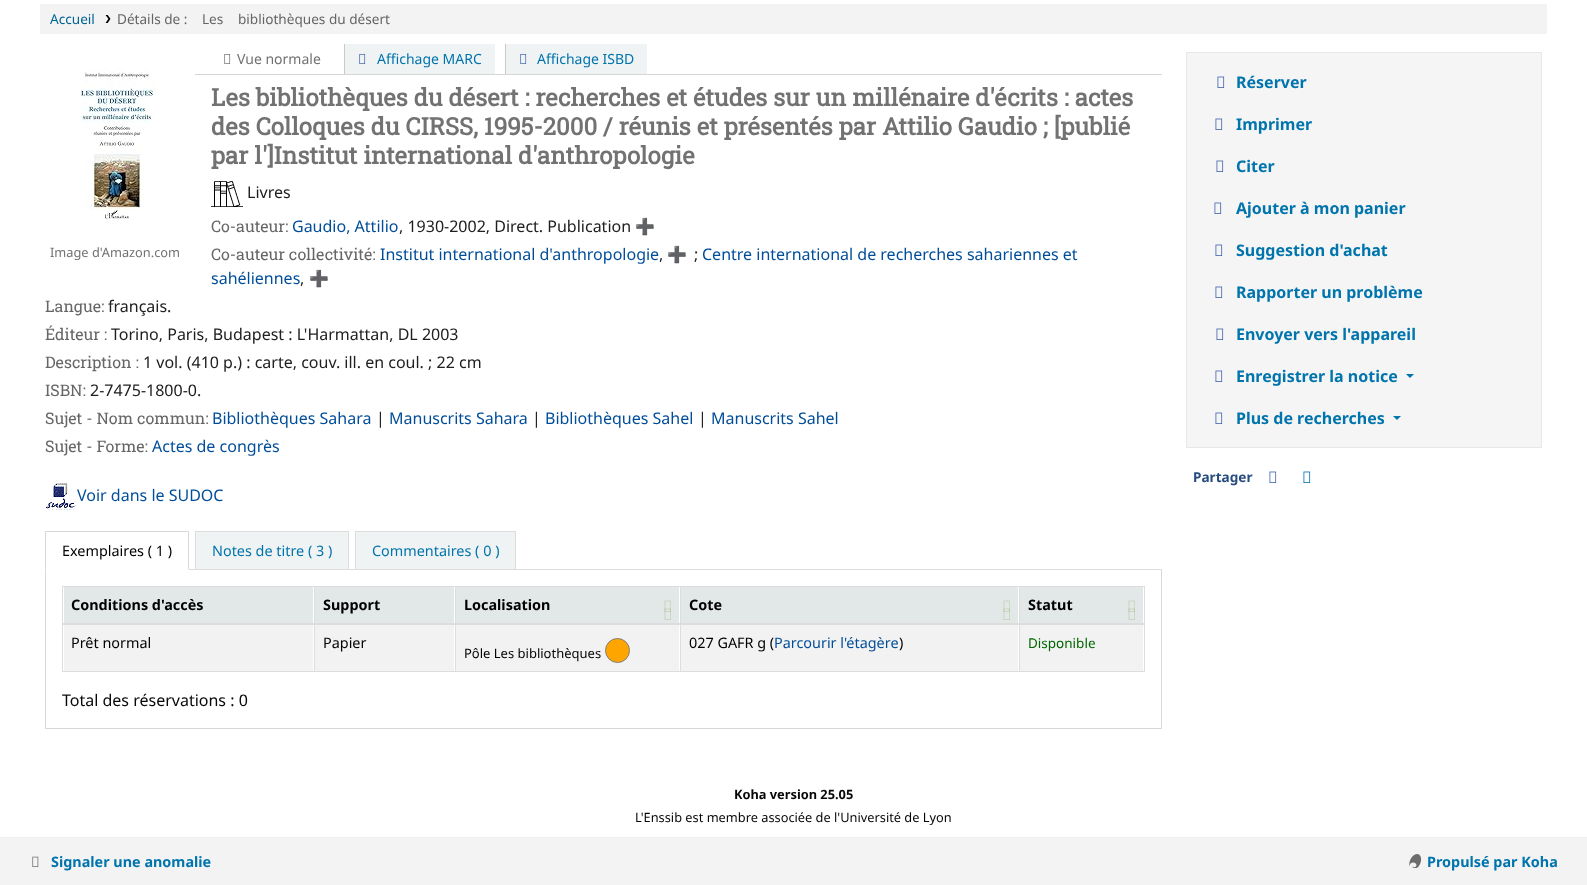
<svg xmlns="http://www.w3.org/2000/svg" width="1587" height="885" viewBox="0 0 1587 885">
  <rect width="100%" height="100%" fill="rgb(255,255,255)"/>
  <rect x="40" y="4" width="1507" height="30" fill="rgb(243,243,243)"/>
  <text x="50" y="24" font-family="Noto Sans" font-size="13.6" fill="rgb(0,99,148)">Accueil</text>
  <image x="105" y="15" width="6" height="8" href="pic1.png"/>
  <g font-family="Noto Sans" font-size="13.6" fill="rgb(102,102,102)">
    <text x="117" y="24">Détails de :</text>
    <text x="202" y="24">Les</text>
    <text x="238" y="24">bibliothèques du désert</text>
  </g>
  <rect x="195" y="74" width="967" height="1" fill="rgb(214,214,214)"/>
  <image x="224" y="54" width="7" height="10" href="pic2.png"/>
  <text x="237" y="64" font-family="Noto Sans" font-size="14" fill="rgb(114,114,114)">Vue normale</text>
  <rect x="345" y="44" width="150" height="30" fill="rgb(240,243,243)"/>
  <rect x="344" y="44" width="1" height="30" fill="rgb(201,201,201)"/>
  <image x="359" y="54" width="7" height="10" href="pic3.png"/>
  <text x="377" y="64" font-family="Noto Sans" font-size="14" fill="rgb(0,116,173)">Affichage MARC</text>
  <rect x="506" y="44" width="141" height="30" fill="rgb(240,243,243)"/>
  <rect x="505" y="44" width="1" height="30" fill="rgb(201,201,201)"/>
  <image x="520" y="54" width="7" height="10" href="pic3.png"/>
  <text x="537" y="64" font-family="Noto Sans" font-size="14" fill="rgb(0,116,173)">Affichage ISBD</text>
  <g font-family="Roboto Slab" font-size="24" font-weight="bold" fill="rgb(114,114,114)">
    <text>
      <tspan x="211" y="106">Les bibliothèques du désert : recherches et études sur un millénaire d'écrits : actes</tspan>
      <tspan x="211" y="135">des Colloques du CIRSS, 1995-2000 / réunis et présentés par Attilio Gaudio ; [publié</tspan>
      <tspan x="211" y="164">par l']Institut international d'anthropologie</tspan>
    </text>
  </g>
  <image x="211" y="181" width="32" height="26" href="pic4.png"/>
  <text x="247" y="198" font-family="Noto Sans" font-size="16" fill="rgb(32,32,32)">Livres</text>
  <text x="211" y="232" font-family="Roboto Slab" font-size="16" fill="rgb(102,102,102)">Co-auteur:</text>
  <text x="292" y="232" font-family="Noto Sans" font-size="16" fill="rgb(0,77,153)">Gaudio, Attilio</text>
  <text x="399" y="232" font-family="Noto Sans" font-size="16" fill="rgb(32,32,32)">, 1930-2002, Direct. Publication</text>
  <text x="635" y="232" font-family="Noto Color Emoji" font-size="16" fill="rgb(0,77,153)">➕</text>
  <image x="81" y="67" width="75" height="157" href="pic5.png"/>
  <text x="50" y="257" font-family="Noto Sans" font-size="12.8" fill="rgb(114,114,114)">Image d'Amazon.com</text>
  <text x="211" y="260" font-family="Roboto Slab" font-size="16" fill="rgb(102,102,102)">Co-auteur collectivité:</text>
  <text x="380" y="260" font-family="Noto Sans" font-size="16" fill="rgb(0,77,153)">Institut international d'anthropologie</text>
  <text x="659" y="260" font-family="Noto Sans" font-size="16" fill="rgb(32,32,32)">,</text>
  <text x="667" y="260" font-family="Noto Color Emoji" font-size="16" fill="rgb(0,77,153)">➕</text>
  <text x="694" y="260" font-family="Noto Sans" font-size="16" fill="rgb(32,32,32)">;</text>
  <g font-family="Noto Sans" font-size="16" fill="rgb(0,77,153)">
    <text x="702" y="260">Centre international de recherches sahariennes et</text>
    <text x="211" y="284">sahéliennes</text>
  </g>
  <text x="300" y="284" font-family="Noto Sans" font-size="16" fill="rgb(32,32,32)">,</text>
  <text x="309" y="284" font-family="Noto Color Emoji" font-size="16" fill="rgb(0,77,153)">➕</text>
  <text x="45" y="312" font-family="Roboto Slab" font-size="16" fill="rgb(102,102,102)">Langue:</text>
  <text x="108" y="312" font-family="Noto Sans" font-size="16" fill="rgb(32,32,32)">français.</text>
  <text x="45" y="340" font-family="Roboto Slab" font-size="16" fill="rgb(102,102,102)">Éditeur :</text>
  <text x="111" y="340" font-family="Noto Sans" font-size="16" fill="rgb(32,32,32)">Torino, Paris, Budapest : L'Harmattan, DL 2003</text>
  <text x="45" y="368" font-family="Roboto Slab" font-size="16" fill="rgb(102,102,102)">Description :</text>
  <text x="143" y="368" font-family="Noto Sans" font-size="16" fill="rgb(32,32,32)">1 vol. (410 p.) : carte, couv. ill. en coul. ; 22 cm</text>
  <text x="45" y="396" font-family="Roboto Slab" font-size="16" fill="rgb(102,102,102)">ISBN:</text>
  <text x="90" y="396" font-family="Noto Sans" font-size="16" fill="rgb(32,32,32)">2-7475-1800-0.</text>
  <text x="45" y="424" font-family="Roboto Slab" font-size="16" fill="rgb(102,102,102)">Sujet - Nom commun:</text>
  <text x="212" y="424" font-family="Noto Sans" font-size="16" fill="rgb(0,77,153)">Bibliothèques Sahara</text>
  <text x="376" y="424" font-family="Noto Sans" font-size="16" fill="rgb(32,32,32)">|</text>
  <text x="389" y="424" font-family="Noto Sans" font-size="16" fill="rgb(0,77,153)">Manuscrits Sahara</text>
  <text x="532" y="424" font-family="Noto Sans" font-size="16" fill="rgb(32,32,32)">|</text>
  <text x="545" y="424" font-family="Noto Sans" font-size="16" fill="rgb(0,77,153)">Bibliothèques Sahel</text>
  <text x="698" y="424" font-family="Noto Sans" font-size="16" fill="rgb(32,32,32)">|</text>
  <text x="711" y="424" font-family="Noto Sans" font-size="16" fill="rgb(0,77,153)">Manuscrits Sahel</text>
  <text x="45" y="452" font-family="Roboto Slab" font-size="16" fill="rgb(102,102,102)">Sujet - Forme:</text>
  <text x="152" y="452" font-family="Noto Sans" font-size="16" fill="rgb(0,77,153)">Actes de congrès</text>
  <image x="46" y="483" width="30" height="28" href="pic6.png"/>
  <text x="77" y="501" font-family="Noto Sans" font-size="16" fill="rgb(0,77,153)">Voir dans le SUDOC</text>
  <rect x="189" y="569" width="973" height="1" fill="rgb(221,221,221)"/>
  <rect x="45" y="531" width="144" height="1" fill="rgb(216,216,216)"/>
  <path d="M189 531V570L188 569V532Z" fill="rgb(216,216,216)"/>
  <path d="M45 570V531L46 532V569Z" fill="rgb(216,216,216)"/>
  <text x="62" y="556" font-family="Noto Sans" font-size="14.4" fill="rgb(0,0,0)">Exemplaires ( 1 )</text>
  <rect x="195.5" y="531.5" width="153" height="38" fill="rgb(240,243,243)" stroke="rgb(221,221,221)"/>
  <text x="212" y="556" font-family="Noto Sans" font-size="14.4" fill="rgb(0,116,173)">Notes de titre ( 3 )</text>
  <rect x="355.5" y="531.5" width="160" height="38" fill="rgb(240,243,243)" stroke="rgb(221,221,221)"/>
  <text x="372" y="556" font-family="Noto Sans" font-size="14.4" fill="rgb(0,116,173)">Commentaires ( 0 )</text>
  <rect x="1161" y="570" width="1" height="159" fill="rgb(216,216,216)"/>
  <rect x="45" y="728" width="1117" height="1" fill="rgb(216,216,216)"/>
  <rect x="45" y="570" width="1" height="159" fill="rgb(216,216,216)"/>
  <rect x="62" y="586" width="1083" height="1" fill="rgb(221,221,221)"/>
  <rect x="64" y="587" width="249" height="36" fill="rgb(226,232,232)"/>
  <text x="71" y="610" font-family="Noto Sans" font-size="14.4" font-weight="bold" fill="rgb(0,0,0)">Conditions d'accès</text>
  <rect x="315" y="587" width="139" height="36" fill="rgb(226,232,232)"/>
  <text x="323" y="610" font-family="Noto Sans" font-size="14.4" font-weight="bold" fill="rgb(0,0,0)">Support</text>
  <rect x="456" y="587" width="223" height="36" fill="rgb(226,232,232)"/>
  <text x="464" y="610" font-family="Noto Sans" font-size="14.4" font-weight="bold" fill="rgb(0,0,0)">Localisation</text>
  <image x="664" y="600" width="7" height="12" href="pic7.png"/>
  <image x="664" y="608" width="7" height="12" href="pic8.png"/>
  <rect x="681" y="587" width="337" height="36" fill="rgb(226,232,232)"/>
  <text x="689" y="610" font-family="Noto Sans" font-size="14.4" font-weight="bold" fill="rgb(0,0,0)">Cote</text>
  <image x="1003" y="600" width="7" height="12" href="pic7.png"/>
  <image x="1003" y="608" width="7" height="12" href="pic8.png"/>
  <rect x="1020" y="587" width="123" height="36" fill="rgb(226,232,232)"/>
  <text x="1028" y="610" font-family="Noto Sans" font-size="14.4" font-weight="bold" fill="rgb(0,0,0)">Statut</text>
  <image x="1128" y="600" width="7" height="12" href="pic7.png"/>
  <image x="1128" y="608" width="7" height="12" href="pic8.png"/>
  <rect x="62" y="623" width="1083" height="2" fill="rgb(221,221,221)"/>
  <rect x="62" y="671" width="1083" height="1" fill="rgb(221,221,221)"/>
  <rect x="64" y="625" width="249" height="46" fill="rgb(242,242,242)"/>
  <rect x="62" y="586" width="1" height="86" fill="rgb(221,221,221)"/>
  <text x="71" y="648" font-family="Noto Sans" font-size="14.4" fill="rgb(0,0,0)">Prêt normal</text>
  <rect x="315" y="625" width="139" height="46" fill="rgb(242,242,242)"/>
  <rect x="314" y="586" width="1" height="86" fill="rgb(221,221,221)"/>
  <text x="323" y="648" font-family="Noto Sans" font-size="14.4" fill="rgb(0,0,0)">Papier</text>
  <rect x="681" y="625" width="337" height="46" fill="rgb(242,242,242)"/>
  <rect x="680" y="586" width="1" height="86" fill="rgb(221,221,221)"/>
  <text x="689" y="648" font-family="Noto Sans" font-size="14.4" fill="rgb(0,0,0)">027 GAFR g (</text>
  <text x="774" y="648" font-family="Noto Sans" font-size="14.4" fill="rgb(0,77,153)">Parcourir l'étagère</text>
  <text x="899" y="648" font-family="Noto Sans" font-size="14.4" fill="rgb(0,0,0)">)</text>
  <rect x="1020" y="625" width="123" height="46" fill="rgb(242,242,242)"/>
  <rect x="1144" y="586" width="1" height="86" fill="rgb(221,221,221)"/>
  <rect x="1019" y="586" width="1" height="86" fill="rgb(221,221,221)"/>
  <text x="1028" y="648" font-family="Noto Sans" font-size="13.5" fill="rgb(0,102,0)">Disponible</text>
  <rect x="456" y="625" width="223" height="46" fill="rgb(242,242,242)"/>
  <rect x="455" y="586" width="1" height="86" fill="rgb(221,221,221)"/>
  <text x="464" y="658" font-family="Noto Sans" font-size="13" fill="rgb(0,0,0)">Pôle Les bibliothèques</text>
  <circle cx="617.5" cy="650.5" r="12" fill="rgb(255,165,0)" stroke="rgb(128,128,128)"/>
  <text x="62" y="706" font-family="Noto Sans" font-size="16" fill="rgb(7,7,7)">Total des réservations : 0</text>
  <rect x="1186.5" y="52.5" width="355" height="395" fill="rgb(245,245,245)" stroke="rgb(232,232,232)"/>
  <image x="1217" y="76" width="8" height="12" href="pic9.png"/>
  <text x="1236" y="88" font-family="Noto Sans" font-size="16" font-weight="bold" fill="rgb(0,116,173)">Réserver</text>
  <image x="1215" y="118" width="8" height="12" href="pic9.png"/>
  <text x="1236" y="130" font-family="Noto Sans" font-size="16" font-weight="bold" fill="rgb(0,116,173)">Imprimer</text>
  <image x="1216" y="160" width="8" height="12" href="pic9.png"/>
  <text x="1236" y="172" font-family="Noto Sans" font-size="16" font-weight="bold" fill="rgb(0,116,173)">Citer</text>
  <image x="1214" y="202" width="8" height="12" href="pic9.png"/>
  <text x="1236" y="214" font-family="Noto Sans" font-size="16" font-weight="bold" fill="rgb(0,116,173)">Ajouter à mon panier</text>
  <image x="1215" y="244" width="8" height="12" href="pic9.png"/>
  <text x="1236" y="256" font-family="Noto Sans" font-size="16" font-weight="bold" fill="rgb(0,116,173)">Suggestion d'achat</text>
  <image x="1215" y="286" width="8" height="12" href="pic9.png"/>
  <text x="1236" y="298" font-family="Noto Sans" font-size="16" font-weight="bold" fill="rgb(0,116,173)">Rapporter un problème</text>
  <image x="1216" y="328" width="8" height="12" href="pic9.png"/>
  <text x="1236" y="340" font-family="Noto Sans" font-size="16" font-weight="bold" fill="rgb(0,116,173)">Envoyer vers l'appareil</text>
  <image x="1215" y="370" width="8" height="12" href="pic9.png"/>
  <text x="1236" y="382" font-family="Noto Sans" font-size="16" font-weight="bold" fill="rgb(0,116,173)">Enregistrer la notice</text>
  <path d="M1406 374H1414L1410 378Z" fill="rgb(0,116,173)"/>
  <image x="1215" y="412" width="8" height="12" href="pic9.png"/>
  <text x="1236" y="424" font-family="Noto Sans" font-size="16" font-weight="bold" fill="rgb(0,116,173)">Plus de recherches</text>
  <path d="M1393 416H1401L1397 420Z" fill="rgb(0,116,173)"/>
  <text x="1193" y="482" font-family="Noto Sans" font-size="13.6" font-weight="bold" fill="rgb(39,77,127)">Partager</text>
  <image x="1269" y="471" width="8" height="12" href="pic10.png"/>
  <image x="1303" y="471" width="8" height="12" href="pic11.png"/>
  <text x="734" y="799" font-family="Noto Sans" font-size="12.8" font-weight="bold" fill="rgb(7,7,7)">Koha version 25.05</text>
  <text x="635" y="822" font-family="Noto Sans" font-size="12.8" fill="rgb(7,7,7)">L'Enssib est membre associée de l'Université de Lyon</text>
  <rect x="0" y="838" width="1587" height="47" fill="rgb(243,243,243)"/>
  <rect x="0" y="837" width="1587" height="1" fill="rgb(238,238,238)"/>
  <image x="32" y="856" width="7" height="11" href="pic12.png"/>
  <text x="51" y="867" font-family="Noto Sans" font-size="14.4" font-weight="bold" fill="rgb(0,116,173)">Signaler une anomalie</text>
  <image x="1409" y="854" width="13" height="14" href="pic13.png"/>
  <text x="1427" y="867" font-family="Noto Sans" font-size="14.4" font-weight="bold" fill="rgb(0,116,173)">Propulsé par Koha</text>
</svg>
